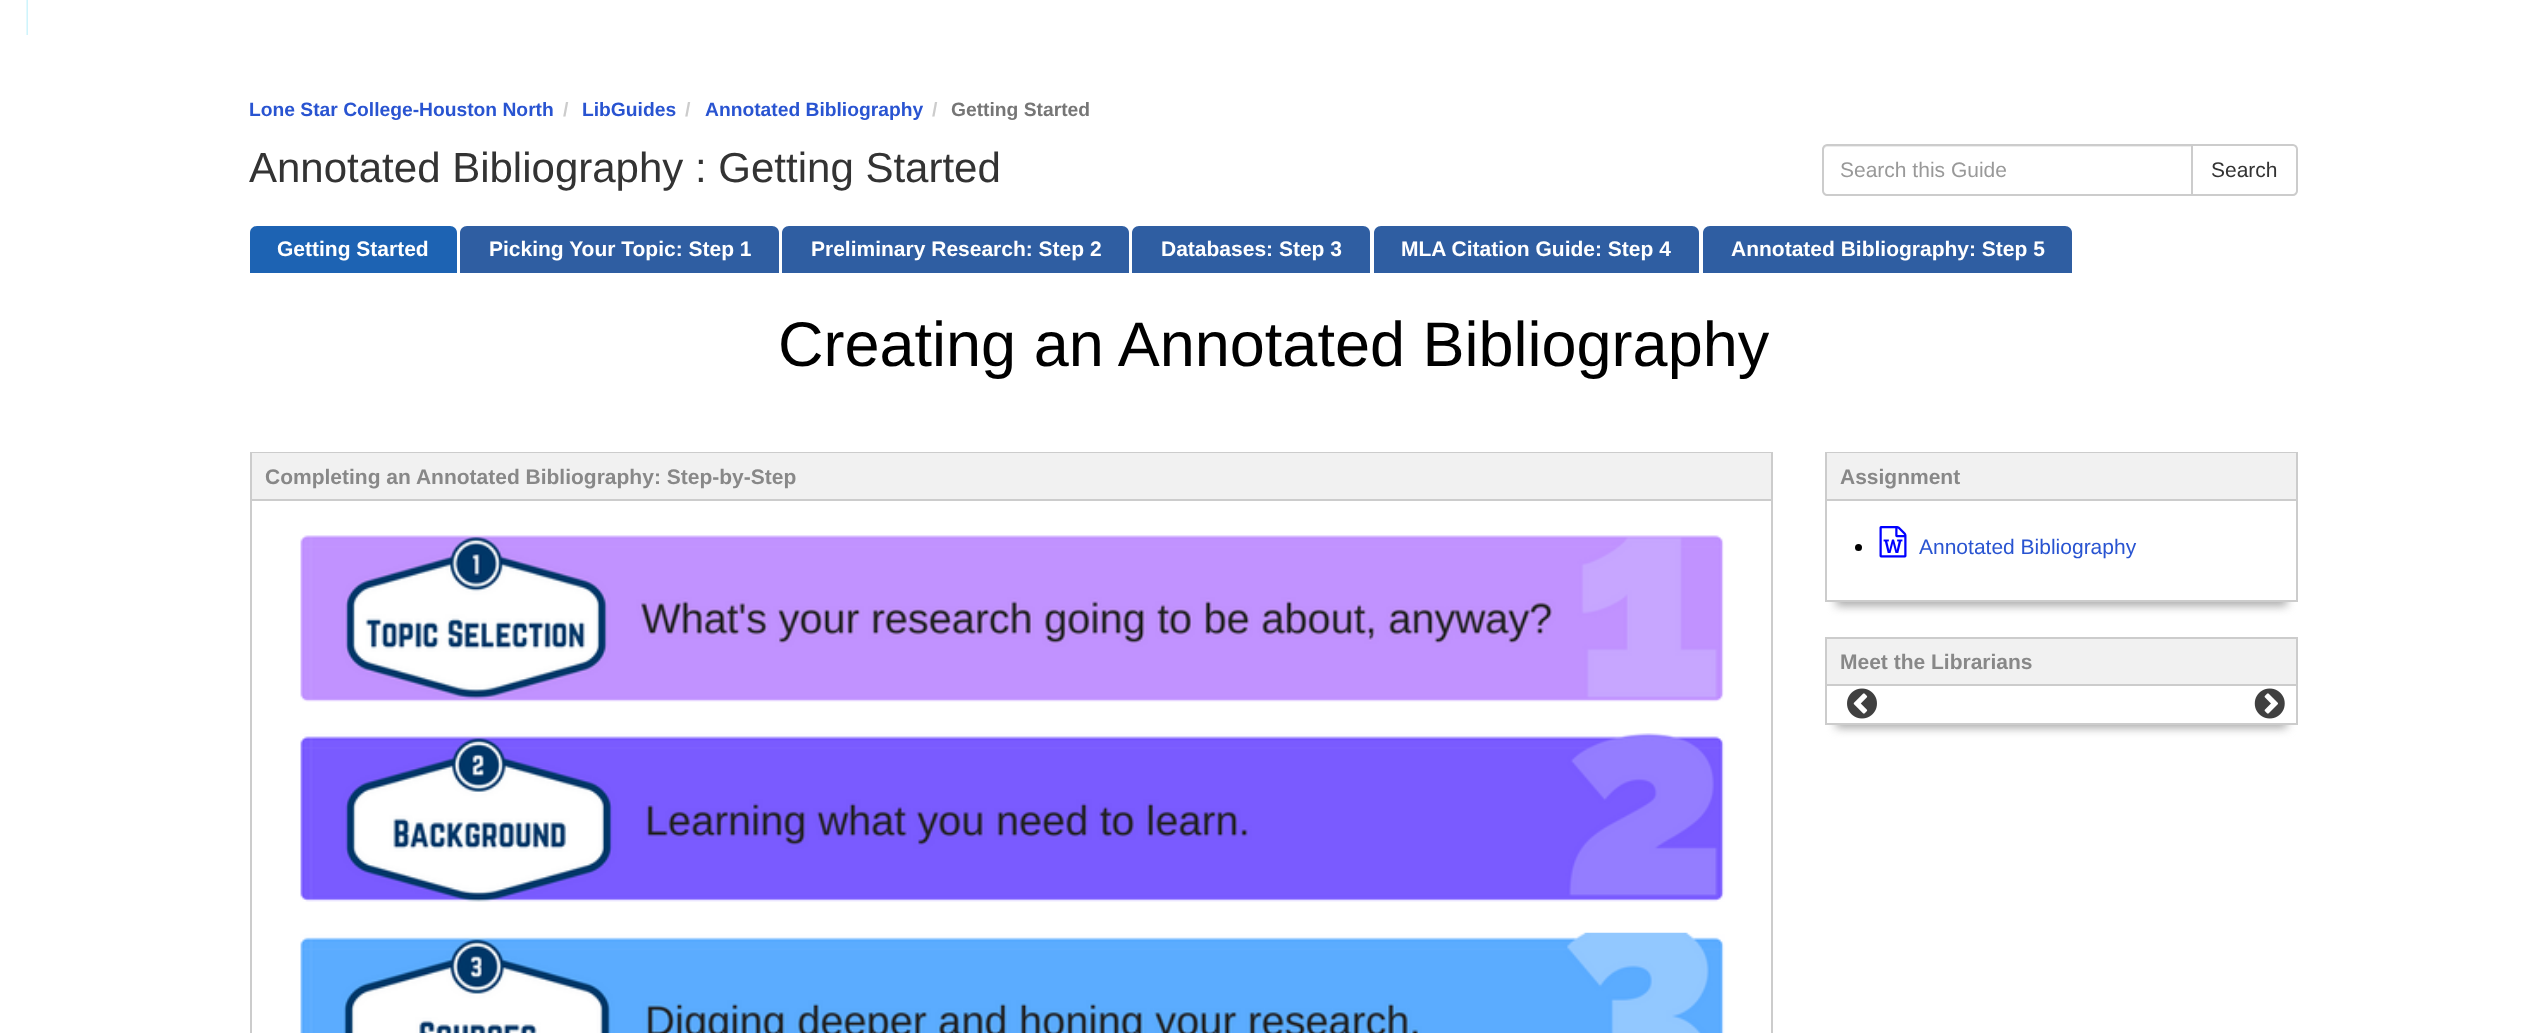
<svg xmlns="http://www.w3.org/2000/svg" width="2545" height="1033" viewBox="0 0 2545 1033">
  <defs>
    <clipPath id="clip1"><rect x="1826" y="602" width="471" height="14"/></clipPath>
  </defs>
  <rect width="100%" height="100%" fill="rgb(255,255,255)"/>
  <image x="26" y="0" width="2" height="35" href="pic1.png"/>
  <text x="249" y="116" font-family="Liberation Sans" font-size="19.25" font-weight="bold" fill="rgb(41,84,209)">Lone Star College-Houston North</text>
  <text x="563" y="116" font-family="Liberation Sans" font-size="19.25" font-weight="bold" fill="rgb(204,204,204)">/</text>
  <text x="582" y="116" font-family="Liberation Sans" font-size="19.25" font-weight="bold" fill="rgb(41,84,209)">LibGuides</text>
  <text x="685" y="116" font-family="Liberation Sans" font-size="19.25" font-weight="bold" fill="rgb(204,204,204)">/</text>
  <text x="705" y="116" font-family="Liberation Sans" font-size="19.25" font-weight="bold" fill="rgb(41,84,209)">Annotated Bibliography</text>
  <text x="932" y="116" font-family="Liberation Sans" font-size="19.25" font-weight="bold" fill="rgb(204,204,204)">/</text>
  <text x="951" y="116" font-family="Liberation Sans" font-size="19.25" font-weight="bold" fill="rgb(118,118,118)">Getting Started</text>
  <text x="249" y="182" font-family="Liberation Sans" font-size="42" fill="rgb(51,51,51)">Annotated Bibliography : Getting Started</text>
  <path d="M1827 147H2191V145H1828C1825 145 1824 147 1824 150C1824 149 1825 147 1827 147Z" fill="rgb(236,236,236)"/>
  <path d="M1827 145H2192V195H1827C1825 195 1823 193 1823 191V149C1823 147 1825 145 1827 145Z" fill="none" stroke="rgb(204,204,204)" stroke-width="2"/>
  <text x="1840" y="177" font-family="Liberation Sans" font-size="21" fill="rgb(153,153,153)">Search this Guide</text>
  <path d="M2192 145H2293C2295 145 2297 147 2297 149V191C2297 193 2295 195 2293 195H2192Z" fill="rgb(255,255,255)" stroke="rgb(204,204,204)" stroke-width="2"/>
  <text x="2211" y="177" font-family="Liberation Sans" font-size="21" fill="rgb(51,51,51)">Search</text>
  <path d="M257 226H450C454 226 457 229 457 233V273H250V233C250 229 253 226 257 226Z" fill="rgb(29,99,179)"/>
  <text x="277" y="256" font-family="Liberation Sans" font-size="21" font-weight="bold" fill="rgb(255,255,255)">Getting Started</text>
  <path d="M467 226H772C776 226 779 229 779 233V273H460V233C460 229 463 226 467 226Z" fill="rgb(47,94,162)"/>
  <text x="489" y="256" font-family="Liberation Sans" font-size="21" font-weight="bold" fill="rgb(255,255,255)">Picking Your Topic: Step 1</text>
  <path d="M789 226H1122C1126 226 1129 229 1129 233V273H782V233C782 229 785 226 789 226Z" fill="rgb(47,94,162)"/>
  <text x="811" y="256" font-family="Liberation Sans" font-size="21" font-weight="bold" fill="rgb(255,255,255)">Preliminary Research: Step 2</text>
  <path d="M1139 226H1363C1367 226 1370 229 1370 233V273H1132V233C1132 229 1135 226 1139 226Z" fill="rgb(47,94,162)"/>
  <text x="1161" y="256" font-family="Liberation Sans" font-size="21" font-weight="bold" fill="rgb(255,255,255)">Databases: Step 3</text>
  <path d="M1381 226H1692C1696 226 1699 229 1699 233V273H1374V233C1374 229 1377 226 1381 226Z" fill="rgb(47,94,162)"/>
  <text x="1401" y="256" font-family="Liberation Sans" font-size="21" font-weight="bold" fill="rgb(255,255,255)">MLA Citation Guide: Step 4</text>
  <path d="M1710 226H2065C2069 226 2072 229 2072 233V273H1703V233C1703 229 1706 226 1710 226Z" fill="rgb(47,94,162)"/>
  <text x="1731" y="256" font-family="Liberation Sans" font-size="21" font-weight="bold" fill="rgb(255,255,255)">Annotated Bibliography: Step 5</text>
  <text x="778" y="366" font-family="Liberation Sans" font-size="63" fill="rgb(0,0,0)">Creating an Annotated Bibliography</text>
  <rect x="251" y="453" width="1521" height="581" fill="none" stroke="rgb(204,204,204)" stroke-width="2"/>
  <rect x="252" y="453" width="1519" height="46" fill="rgb(241,241,241)"/>
  <rect x="252" y="499" width="1519" height="2" fill="rgb(204,204,204)"/>
  <text x="265" y="484" font-family="Liberation Sans" font-size="21" font-weight="bold" fill="rgb(136,136,136)">Completing an Annotated Bibliography: Step-by-Step</text>
  <image x="300" y="535" width="1424" height="167" href="pic2.png"/>
  <image x="300" y="733" width="1425" height="169" href="pic3.png"/>
  <image x="300" y="932" width="1425" height="101" href="pic4.png"/>
  <g clip-path="url(#clip1)">
    <rect x="1836" y="476" width="451" height="130" fill="rgb(170,170,170)" filter="blur(5px)"/>
  </g>
  <rect x="1826" y="453" width="471" height="148" fill="none" stroke="rgb(204,204,204)" stroke-width="2"/>
  <rect x="1827" y="453" width="469" height="46" fill="rgb(241,241,241)"/>
  <rect x="1827" y="499" width="469" height="2" fill="rgb(204,204,204)"/>
  <text x="1840" y="484" font-family="Liberation Sans" font-size="21" font-weight="bold" fill="rgb(136,136,136)">Assignment</text>
  <circle cx="1858.5" cy="547.5" r="3.5" fill="rgb(0,0,0)"/>
  <image x="1879" y="526" width="28" height="32" href="pic5.png"/>
  <text x="1919" y="554" font-family="Liberation Sans" font-size="21" fill="rgb(41,84,209)">Annotated Bibliography</text>
  <rect x="1836" y="662" width="451" height="66" fill="rgb(170,170,170)" filter="blur(5px)"/>
  <rect x="1827" y="686" width="469" height="37" fill="rgb(255,255,255)"/>
  <rect x="1826" y="638" width="471" height="86" fill="none" stroke="rgb(204,204,204)" stroke-width="2"/>
  <rect x="1827" y="639" width="469" height="45" fill="rgb(241,241,241)"/>
  <rect x="1827" y="684" width="469" height="2" fill="rgb(204,204,204)"/>
  <text x="1840" y="669" font-family="Liberation Sans" font-size="21" font-weight="bold" fill="rgb(136,136,136)">Meet the Librarians</text>
  <image x="1847" y="688" width="30" height="31" href="pic6.png"/>
  <image x="2254" y="688" width="31" height="31" href="pic7.png"/>
</svg>
